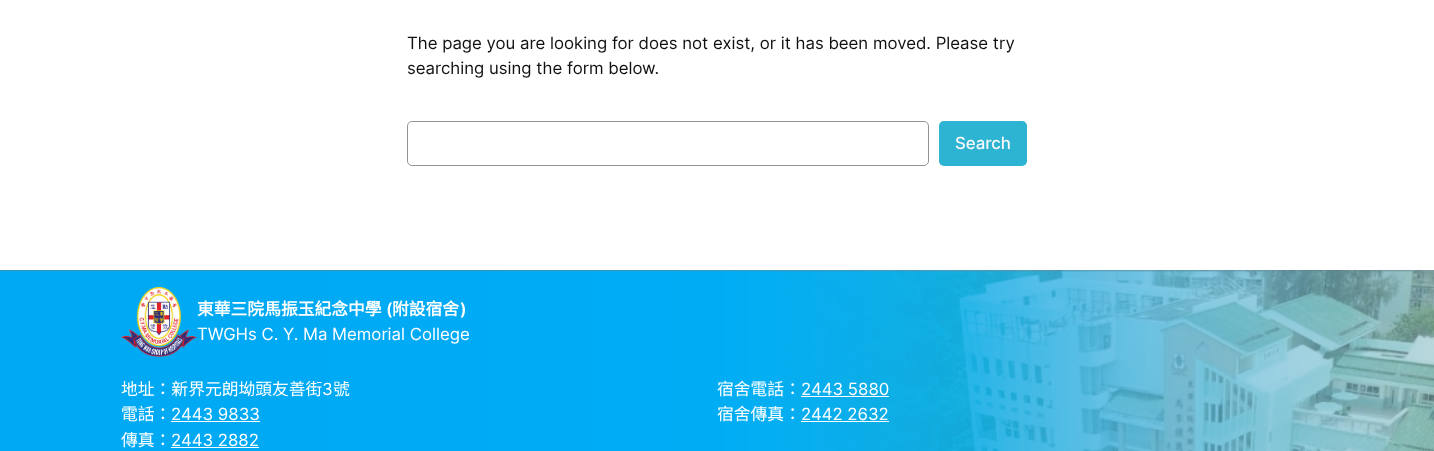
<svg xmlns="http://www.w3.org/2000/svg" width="1434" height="451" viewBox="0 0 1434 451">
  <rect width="100%" height="100%" fill="rgb(255,255,255)"/>
  <g font-family="Inter" font-size="16.8" fill="rgb(17,17,17)">
    <text>
      <tspan x="407" y="49">The page you are looking for does not exist, or it has been moved. Please try</tspan>
      <tspan x="407" y="74">searching using the form below.</tspan>
    </text>
  </g>
  <rect x="407.5" y="121.5" width="521" height="44" rx="4.5" fill="none" stroke="rgb(148,148,148)"/>
  <rect x="939" y="121" width="88" height="45" rx="5" fill="rgb(44,180,210)"/>
  <text x="955" y="149" font-family="Inter" font-size="16.8" font-weight="500" fill="rgb(249,249,249)">Search</text>
  <image x="0" y="270" width="1434" height="181" href="pic1.png"/>
  <image x="121" y="287" width="76" height="70" href="pic2.png"/>
  <text x="197" y="315" font-family="Noto Sans CJK HK" font-size="16.8" font-weight="bold" fill="rgb(255,255,255)">東華三院馬振玉紀念中學</text>
  <text x="386" y="315" font-family="Inter" font-size="16.8" font-weight="600" fill="rgb(255,255,255)">(</text>
  <text x="392" y="315" font-family="Noto Sans CJK HK" font-size="16.8" font-weight="bold" fill="rgb(255,255,255)">附設宿舍</text>
  <text x="460" y="315" font-family="Inter" font-size="16.8" font-weight="600" fill="rgb(255,255,255)">)</text>
  <text x="197" y="340" font-family="Inter" font-size="16.8" fill="rgb(255,255,255)">TWGHs C. Y. Ma Memorial College</text>
  <text x="121" y="395" font-family="Noto Sans CJK HK" font-size="16.8" fill="rgb(255,255,255)">地址：新界元朗坳頭友善街</text>
  <text x="322" y="395" font-family="Inter" font-size="16.8" fill="rgb(255,255,255)">3</text>
  <g font-family="Noto Sans CJK HK" font-size="16.8" fill="rgb(255,255,255)">
    <text x="333" y="395">號</text>
    <text x="121" y="420">電話：</text>
  </g>
  <text x="171" y="420" font-family="Inter" font-size="16.8" fill="rgb(255,255,255)">2443 9833</text>
  <rect x="171" y="421" width="89" height="1" fill="rgb(255,255,255)"/>
  <text x="121" y="446" font-family="Noto Sans CJK HK" font-size="16.8" fill="rgb(255,255,255)">傳真：</text>
  <text x="171" y="446" font-family="Inter" font-size="16.8" fill="rgb(255,255,255)">2443 2882</text>
  <rect x="171" y="447" width="88" height="1" fill="rgb(255,255,255)"/>
  <text x="717" y="395" font-family="Noto Sans CJK HK" font-size="16.8" fill="rgb(255,255,255)">宿舍電話：</text>
  <text x="801" y="395" font-family="Inter" font-size="16.8" fill="rgb(255,255,255)">2443 5880</text>
  <rect x="801" y="396" width="88" height="1" fill="rgb(255,255,255)"/>
  <text x="717" y="420" font-family="Noto Sans CJK HK" font-size="16.8" fill="rgb(255,255,255)">宿舍傳真：</text>
  <text x="801" y="420" font-family="Inter" font-size="16.8" fill="rgb(255,255,255)">2442 2632</text>
  <rect x="801" y="421" width="88" height="1" fill="rgb(255,255,255)"/>
</svg>
